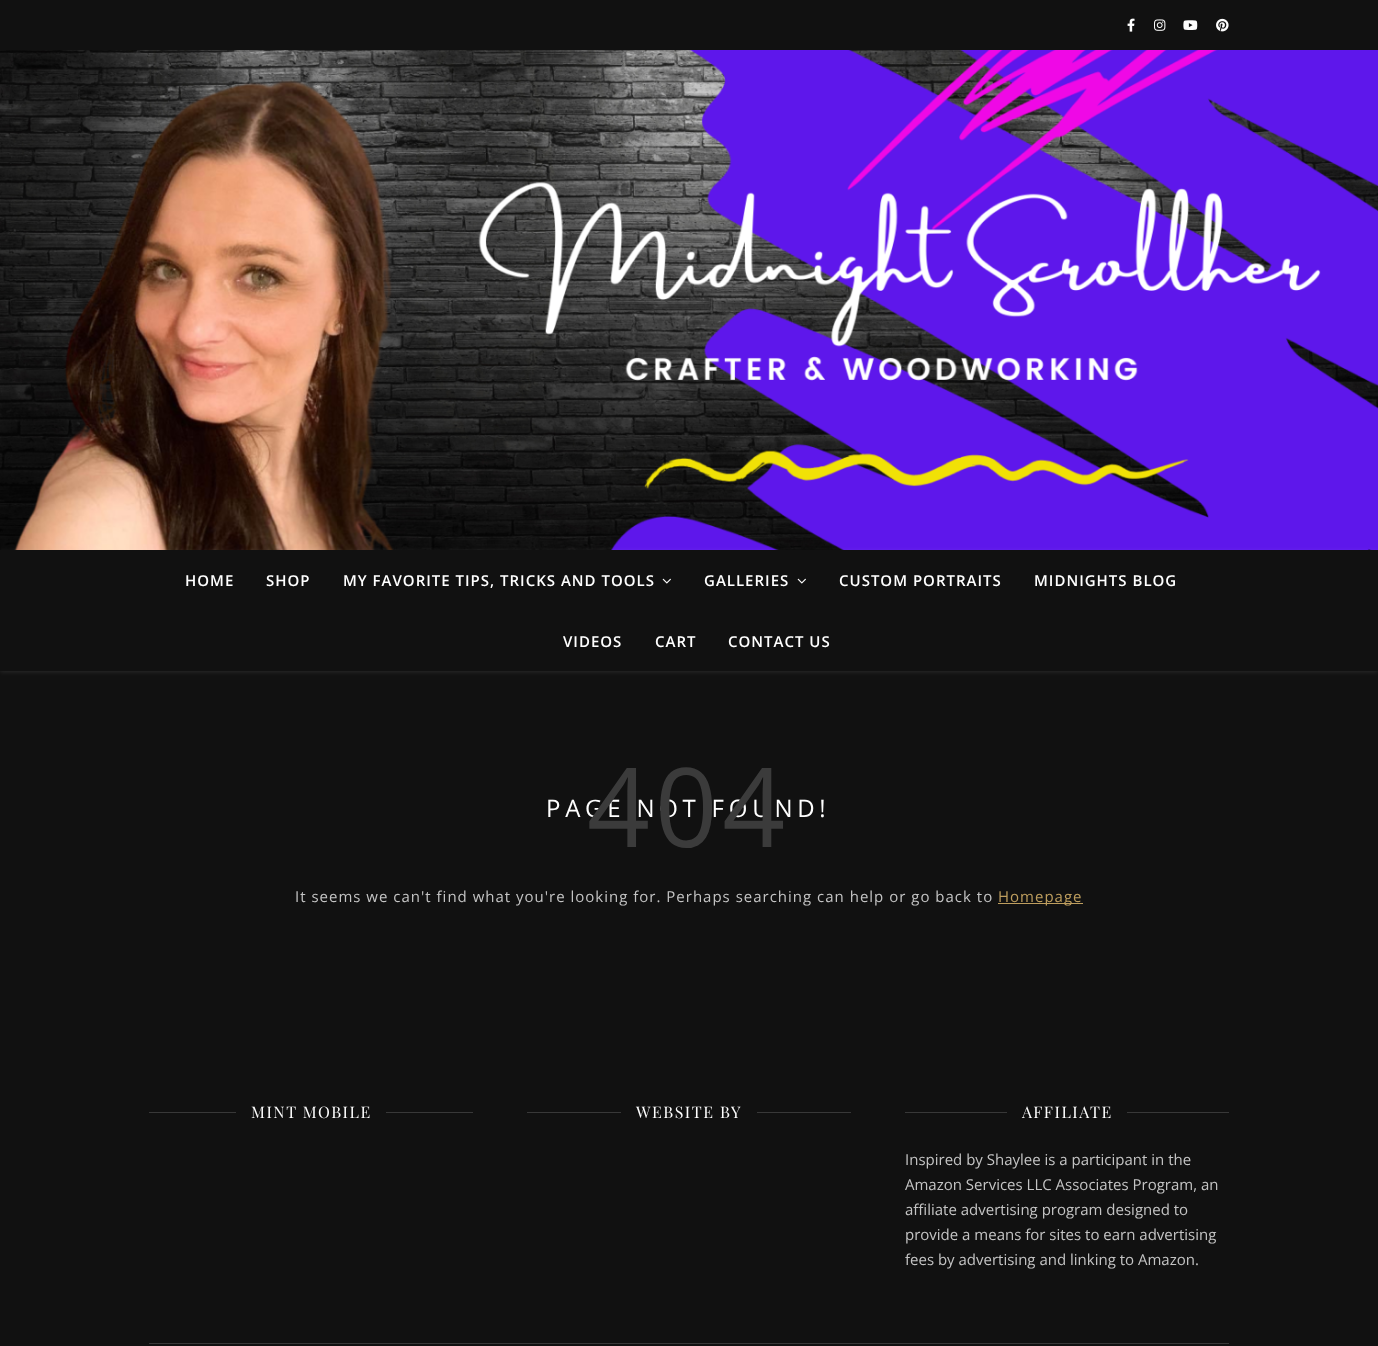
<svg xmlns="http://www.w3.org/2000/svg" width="1378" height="1346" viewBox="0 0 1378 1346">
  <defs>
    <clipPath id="clip1"><path d="M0 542H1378V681H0ZM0 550H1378V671H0Z" clip-rule="evenodd"/></clipPath>
  </defs>
  <rect width="100%" height="100%" fill="rgb(17,17,17)"/>
  <image x="1127" y="18" width="8" height="14" href="pic1.png"/>
  <image x="1154" y="19" width="12" height="12" href="pic2.png"/>
  <image x="1183" y="20" width="15" height="10" href="pic3.png"/>
  <image x="1216" y="18" width="13" height="14" href="pic4.png"/>
  <image x="0" y="50" width="1378" height="500" href="pic5.png"/>
  <g clip-path="url(#clip1)">
    <rect x="0" y="551" width="1378" height="121" fill="rgba(255,255,255,0.1)" filter="blur(2.5px)"/>
  </g>
  <g font-family="Open Sans" font-size="15" font-weight="600" letter-spacing="1" fill="rgb(255,255,255)">
    <text x="185" y="586">HOME</text>
    <text x="266" y="586">SHOP</text>
    <text x="343" y="586">MY FAVORITE TIPS, TRICKS AND TOOLS</text>
  </g>
  <image x="662" y="578" width="9" height="6" href="pic6.png"/>
  <text x="704" y="586" font-family="Open Sans" font-size="15" font-weight="600" letter-spacing="1" fill="rgb(255,255,255)">GALLERIES</text>
  <image x="797" y="578" width="9" height="6" href="pic6.png"/>
  <g font-family="Open Sans" font-size="15" font-weight="600" letter-spacing="1" fill="rgb(255,255,255)">
    <text x="839" y="586">CUSTOM PORTRAITS</text>
    <text x="1034" y="586">MIDNIGHTS BLOG</text>
    <text x="563" y="647">VIDEOS</text>
    <text x="655" y="647">CART</text>
    <text x="728" y="647">CONTACT US</text>
  </g>
  <text x="546" y="817" font-family="Open Sans" font-size="24" letter-spacing="4.75" fill="rgb(255,255,255)">PAGE NOT FOUND!</text>
  <text x="587" y="847" font-family="Open Sans" font-size="110" letter-spacing="4.75" fill="rgb(59,59,59)">404</text>
  <text x="295" y="902" font-family="Open Sans" font-size="15" letter-spacing="1" fill="rgb(196,196,196)">It seems we can't find what you're looking for. Perhaps searching can help or go back to</text>
  <rect x="998" y="903" width="85" height="1" fill="rgb(190,158,94)"/>
  <text x="998" y="902" font-family="Open Sans" font-size="15" letter-spacing="1" fill="rgb(190,158,94)">Homepage</text>
  <rect x="149" y="1343" width="1080" height="1" fill="rgb(56,56,56)"/>
  <rect x="149" y="1112" width="87" height="1" fill="rgb(56,56,56)"/>
  <text x="251" y="1118" font-family="Playfair Display" font-size="16" letter-spacing="1.5" fill="rgb(255,255,255)">MINT MOBILE</text>
  <rect x="386" y="1112" width="87" height="1" fill="rgb(56,56,56)"/>
  <rect x="527" y="1112" width="94" height="1" fill="rgb(56,56,56)"/>
  <text x="636" y="1118" font-family="Playfair Display" font-size="16" letter-spacing="1.5" fill="rgb(255,255,255)">WEBSITE BY</text>
  <rect x="757" y="1112" width="94" height="1" fill="rgb(56,56,56)"/>
  <rect x="905" y="1112" width="102" height="1" fill="rgb(56,56,56)"/>
  <text x="1022" y="1118" font-family="Playfair Display" font-size="16" letter-spacing="1.5" fill="rgb(255,255,255)">AFFILIATE</text>
  <rect x="1127" y="1112" width="102" height="1" fill="rgb(56,56,56)"/>
  <g font-family="Open Sans" font-size="15" fill="rgb(196,196,196)">
    <text>
      <tspan x="905" y="1165">Inspired by Shaylee is a participant in the</tspan>
      <tspan x="905" y="1190">Amazon Services LLC Associates Program, an</tspan>
      <tspan x="905" y="1215">affiliate advertising program designed to</tspan>
      <tspan x="905" y="1240">provide a means for sites to earn advertising</tspan>
      <tspan x="905" y="1265">fees by advertising and linking to Amazon.</tspan>
    </text>
  </g>
</svg>
